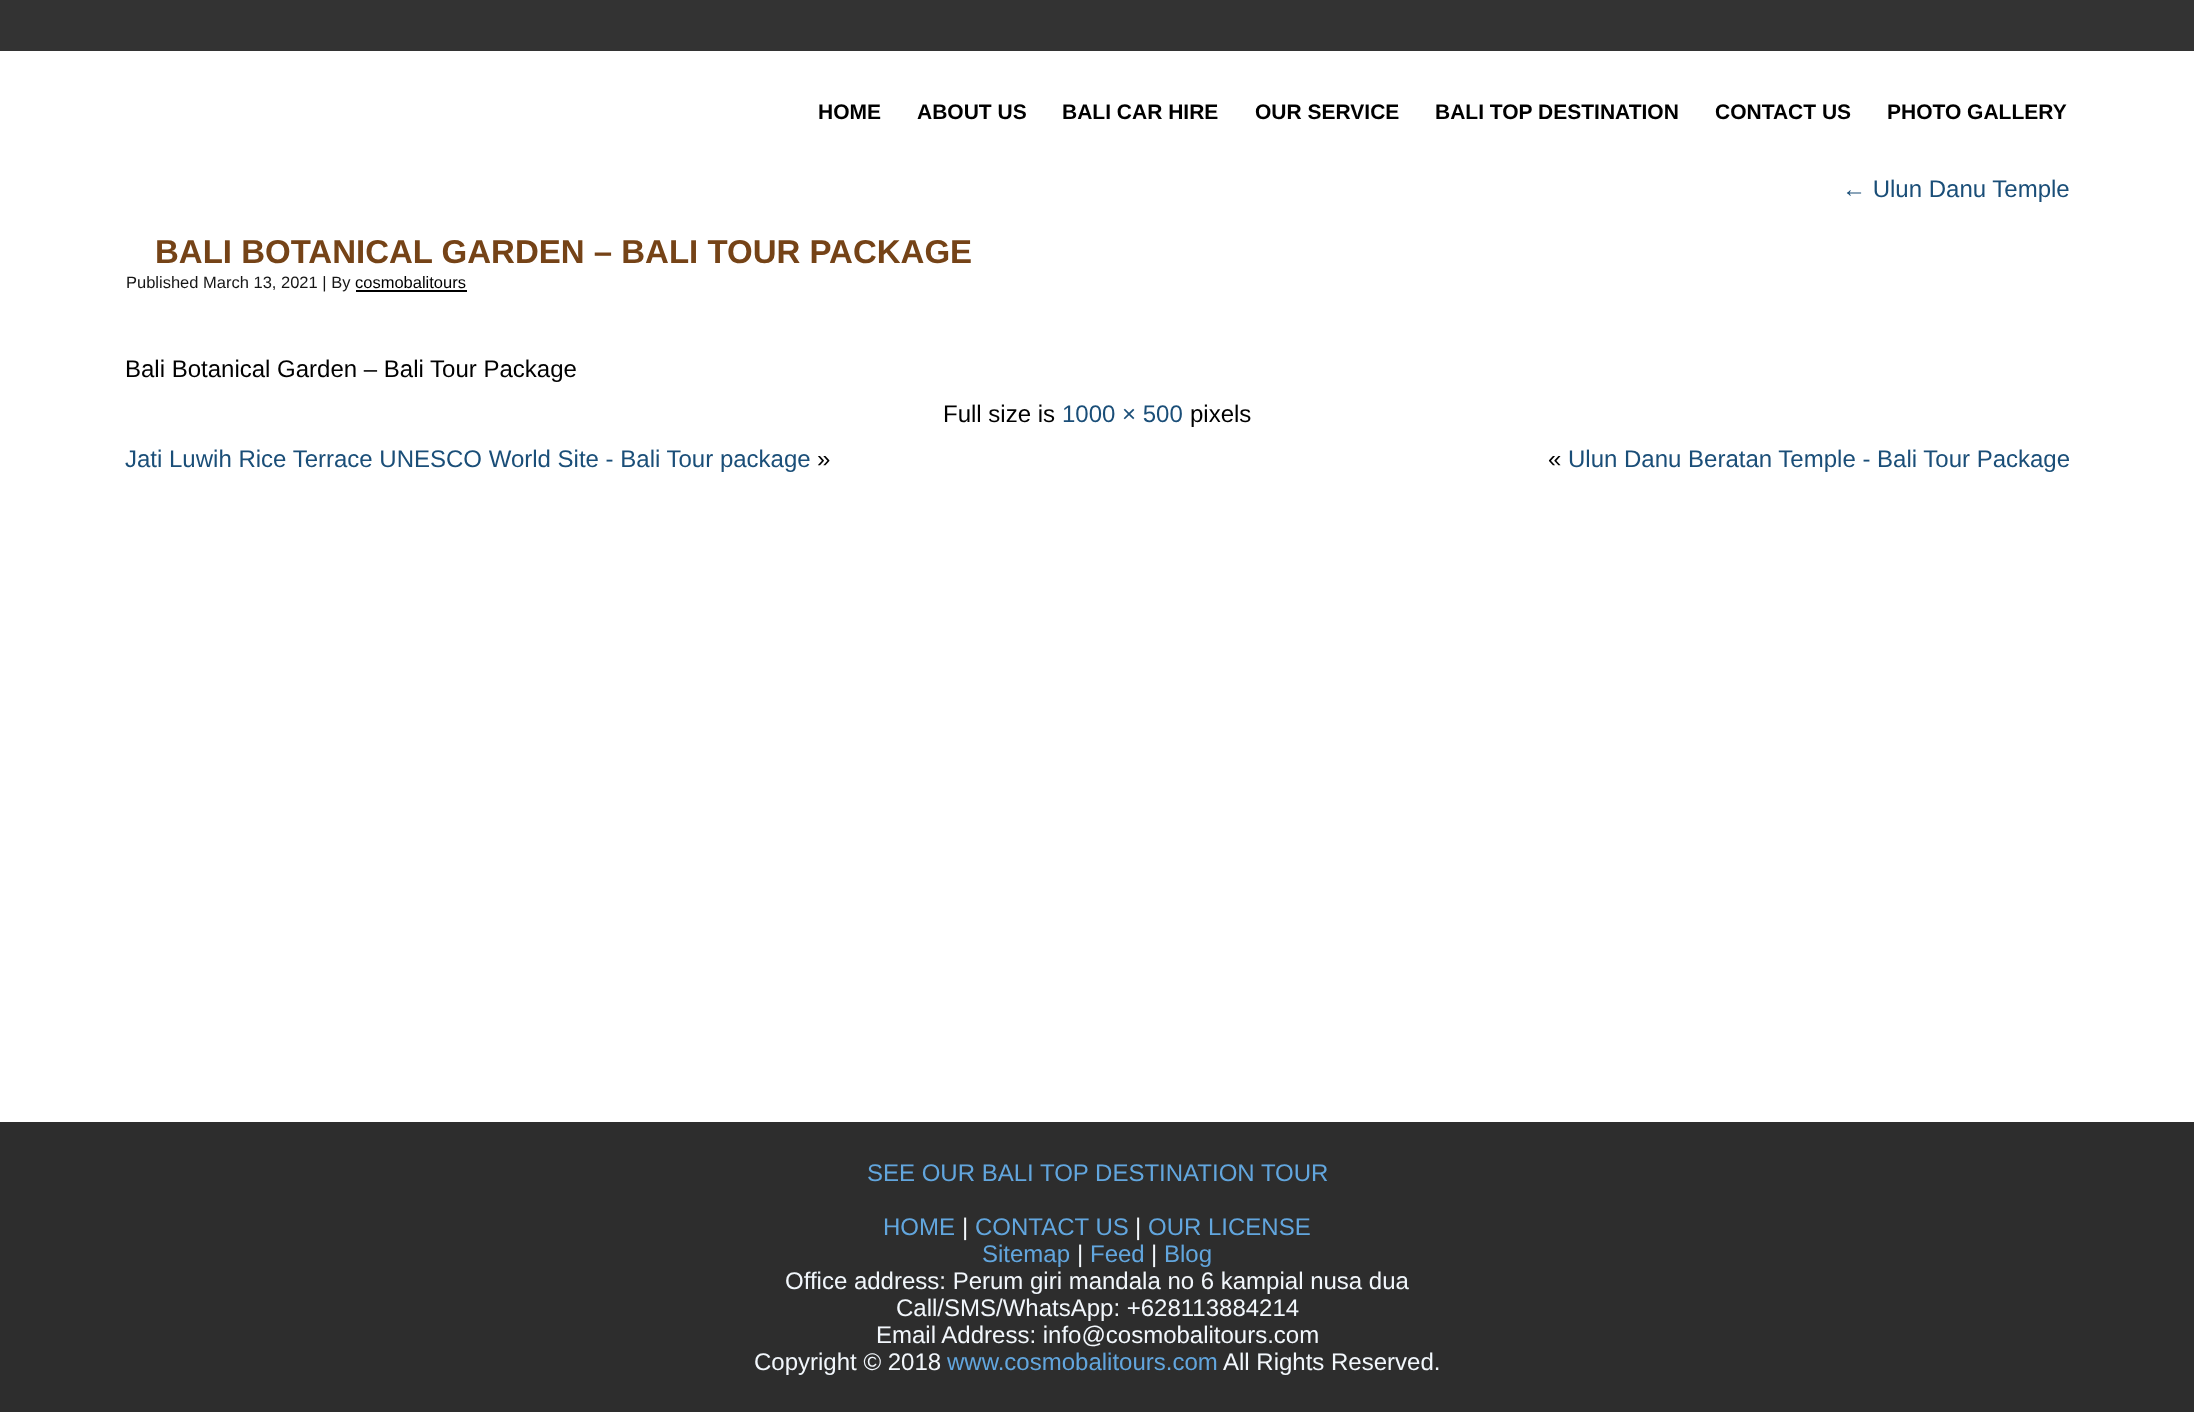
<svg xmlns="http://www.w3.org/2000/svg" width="2194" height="1412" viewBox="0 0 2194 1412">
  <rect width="100%" height="100%" fill="rgb(255,255,255)"/>
  <rect x="0" y="0" width="2194" height="51" fill="rgb(51,51,51)"/>
  <g font-family="Liberation Sans" font-size="21" font-weight="bold" fill="rgb(0,0,0)">
    <text x="818" y="119">HOME</text>
    <text x="917" y="119">ABOUT US</text>
    <text x="1062" y="119">BALI CAR HIRE</text>
    <text x="1255" y="119">OUR SERVICE</text>
    <text x="1435" y="119">BALI TOP DESTINATION</text>
    <text x="1715" y="119">CONTACT US</text>
    <text x="1887" y="119">PHOTO GALLERY</text>
  </g>
  <text x="1842" y="197" font-family="Liberation Sans" font-size="24" fill="rgb(26,78,120)">← Ulun Danu Temple</text>
  <text x="155" y="263" font-family="Liberation Sans" font-size="33" font-weight="bold" fill="rgb(117,67,23)">BALI BOTANICAL GARDEN – BALI TOUR PACKAGE</text>
  <text x="126" y="288" font-family="Liberation Sans" font-size="16.5" fill="rgb(22,22,22)">Published March 13, 2021 | By</text>
  <text x="355" y="288" font-family="Liberation Sans" font-size="16.5" fill="rgb(0,0,0)">cosmobalitours</text>
  <rect x="356" y="290" width="111" height="2" fill="rgb(0,0,0)"/>
  <g font-family="Liberation Sans" font-size="24" fill="rgb(0,0,0)">
    <text x="125" y="377">Bali Botanical Garden – Bali Tour Package</text>
    <text x="943" y="422">Full size is</text>
  </g>
  <text x="1062" y="422" font-family="Liberation Sans" font-size="24" fill="rgb(26,78,120)">1000 × 500</text>
  <text x="1190" y="422" font-family="Liberation Sans" font-size="24" fill="rgb(0,0,0)">pixels</text>
  <text x="125" y="467" font-family="Liberation Sans" font-size="24" fill="rgb(26,78,120)">Jati Luwih Rice Terrace UNESCO World Site - Bali Tour package</text>
  <g font-family="Liberation Sans" font-size="24" fill="rgb(0,0,0)">
    <text x="817" y="467">»</text>
    <text x="1548" y="467">«</text>
  </g>
  <text x="1568" y="467" font-family="Liberation Sans" font-size="24" fill="rgb(26,78,120)">Ulun Danu Beratan Temple - Bali Tour Package</text>
  <rect x="0" y="1122" width="2194" height="290" fill="rgb(45,45,45)"/>
  <g font-family="Liberation Sans" font-size="24" fill="rgb(98,166,222)">
    <text x="867" y="1181">SEE OUR BALI TOP DESTINATION TOUR</text>
    <text x="883" y="1235">HOME</text>
  </g>
  <text x="962" y="1235" font-family="Liberation Sans" font-size="24" fill="rgb(242,247,252)">|</text>
  <text x="975" y="1235" font-family="Liberation Sans" font-size="24" fill="rgb(98,166,222)">CONTACT US</text>
  <text x="1135" y="1235" font-family="Liberation Sans" font-size="24" fill="rgb(242,247,252)">|</text>
  <g font-family="Liberation Sans" font-size="24" fill="rgb(98,166,222)">
    <text x="1148" y="1235">OUR LICENSE</text>
    <text x="982" y="1262">Sitemap</text>
  </g>
  <text x="1077" y="1262" font-family="Liberation Sans" font-size="24" fill="rgb(242,247,252)">|</text>
  <text x="1090" y="1262" font-family="Liberation Sans" font-size="24" fill="rgb(98,166,222)">Feed</text>
  <text x="1151" y="1262" font-family="Liberation Sans" font-size="24" fill="rgb(242,247,252)">|</text>
  <text x="1164" y="1262" font-family="Liberation Sans" font-size="24" fill="rgb(98,166,222)">Blog</text>
  <g font-family="Liberation Sans" font-size="24" fill="rgb(242,247,252)">
    <text x="785" y="1289">Office address: Perum giri mandala no 6 kampial nusa dua</text>
    <text x="896" y="1316">Call/SMS/WhatsApp: +628113884214</text>
    <text x="876" y="1343">Email Address: info@cosmobalitours.com</text>
    <text x="754" y="1370">Copyright © 2018</text>
  </g>
  <text x="947" y="1370" font-family="Liberation Sans" font-size="24" fill="rgb(98,166,222)">www.cosmobalitours.com</text>
  <text x="1223" y="1370" font-family="Liberation Sans" font-size="24" fill="rgb(242,247,252)">All Rights Reserved.</text>
</svg>
